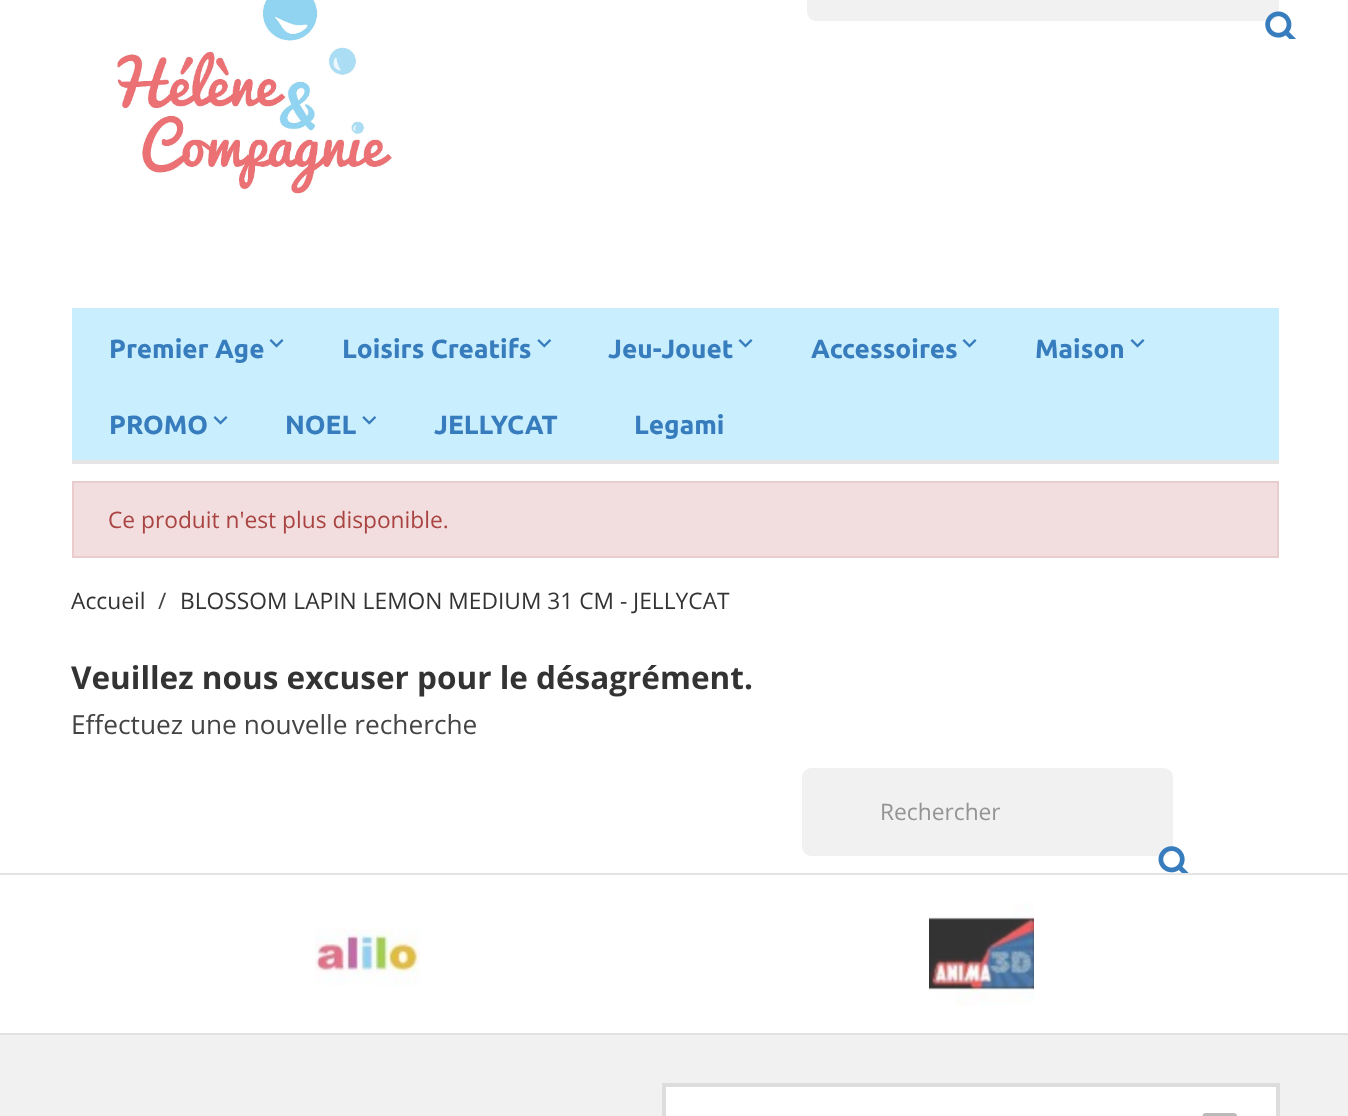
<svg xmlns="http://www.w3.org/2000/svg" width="1348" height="1116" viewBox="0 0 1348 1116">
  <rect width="100%" height="100%" fill="rgb(255,255,255)"/>
  <image x="117" y="0" width="275" height="194" href="pic1.png"/>
  <rect x="807" y="-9" width="472" height="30" rx="9" fill="rgb(241,241,241)"/>
  <image x="1265" y="11" width="31" height="28" href="pic2.png"/>
  <rect x="72" y="308" width="1207" height="152" fill="rgb(201,238,254)"/>
  <rect x="72" y="460" width="1207" height="4" fill="rgb(229,229,229)"/>
  <text x="109" y="358" font-family="Ubuntu" font-size="26.25" font-weight="bold" fill="rgb(55,124,188)">Premier Age</text>
  <image x="269" y="339" width="15" height="9" href="pic3.png"/>
  <text x="342" y="358" font-family="Ubuntu" font-size="26.25" font-weight="bold" fill="rgb(55,124,188)">Loisirs Creatifs</text>
  <image x="537" y="339" width="15" height="9" href="pic4.png"/>
  <text x="608" y="358" font-family="Ubuntu" font-size="26.25" font-weight="bold" fill="rgb(55,124,188)">Jeu-Jouet</text>
  <image x="738" y="339" width="15" height="9" href="pic3.png"/>
  <text x="811" y="358" font-family="Ubuntu" font-size="26.25" font-weight="bold" fill="rgb(55,124,188)">Accessoires</text>
  <image x="962" y="339" width="15" height="9" href="pic3.png"/>
  <text x="1035" y="358" font-family="Ubuntu" font-size="26.25" font-weight="bold" fill="rgb(55,124,188)">Maison</text>
  <image x="1130" y="339" width="15" height="9" href="pic3.png"/>
  <text x="109" y="434" font-family="Ubuntu" font-size="26.25" font-weight="bold" fill="rgb(55,124,188)">PROMO</text>
  <image x="213" y="416" width="15" height="9" href="pic3.png"/>
  <text x="285" y="434" font-family="Ubuntu" font-size="26.25" font-weight="bold" fill="rgb(55,124,188)">NOEL</text>
  <image x="362" y="416" width="15" height="9" href="pic4.png"/>
  <g font-family="Ubuntu" font-size="26.25" font-weight="bold" fill="rgb(55,124,188)">
    <text x="434" y="434">JELLYCAT</text>
    <text x="634" y="434">Legami</text>
  </g>
  <rect x="73" y="482" width="1205" height="75" fill="rgb(242,222,222)" stroke="rgb(235,204,204)" stroke-width="2"/>
  <text x="108" y="528" font-family="Open Sans" font-size="22.75" fill="rgb(169,68,66)">Ce produit n'est plus disponible.</text>
  <text x="71" y="609" font-family="Open Sans" font-size="22.75" fill="rgb(51,51,51)">Accueil</text>
  <text x="158" y="609" font-family="Open Sans" font-size="22.75" fill="rgb(68,68,68)">/</text>
  <text x="180" y="609" font-family="Open Sans" font-size="22.75" fill="rgb(51,51,51)">BLOSSOM LAPIN LEMON MEDIUM 31 CM - JELLYCAT</text>
  <text x="71" y="689" font-family="Open Sans" font-size="31.5" font-weight="bold" fill="rgb(51,51,51)">Veuillez nous excuser pour le désagrément.</text>
  <text x="71" y="734" font-family="Open Sans" font-size="26.25" fill="rgb(68,68,68)">Effectuez une nouvelle recherche</text>
  <rect x="802" y="768" width="371" height="88" rx="9" fill="rgb(241,241,241)"/>
  <text x="880" y="820" font-family="Open Sans" font-size="22.75" fill="rgb(148,148,148)">Rechercher</text>
  <image x="1158" y="846" width="31" height="27" href="pic5.png"/>
  <rect x="0" y="1035" width="1348" height="81" fill="rgb(241,241,241)"/>
  <rect x="0" y="873" width="1348" height="2" fill="rgb(228,228,228)"/>
  <image x="315" y="928" width="105" height="58" href="pic6.png"/>
  <image x="929" y="903" width="105" height="103" href="pic7.png"/>
  <rect x="0" y="1033" width="1348" height="2" fill="rgb(225,225,225)"/>
  <rect x="666" y="1087" width="610" height="29" fill="rgb(255,255,255)"/>
  <rect x="662" y="1083" width="617" height="4" fill="rgb(221,221,221)"/>
  <rect x="1276" y="1083" width="4" height="33" fill="rgb(221,221,221)"/>
  <image x="1202" y="1113" width="35" height="3" href="pic8.png"/>
  <rect x="662" y="1083" width="4" height="33" fill="rgb(221,221,221)"/>
</svg>
